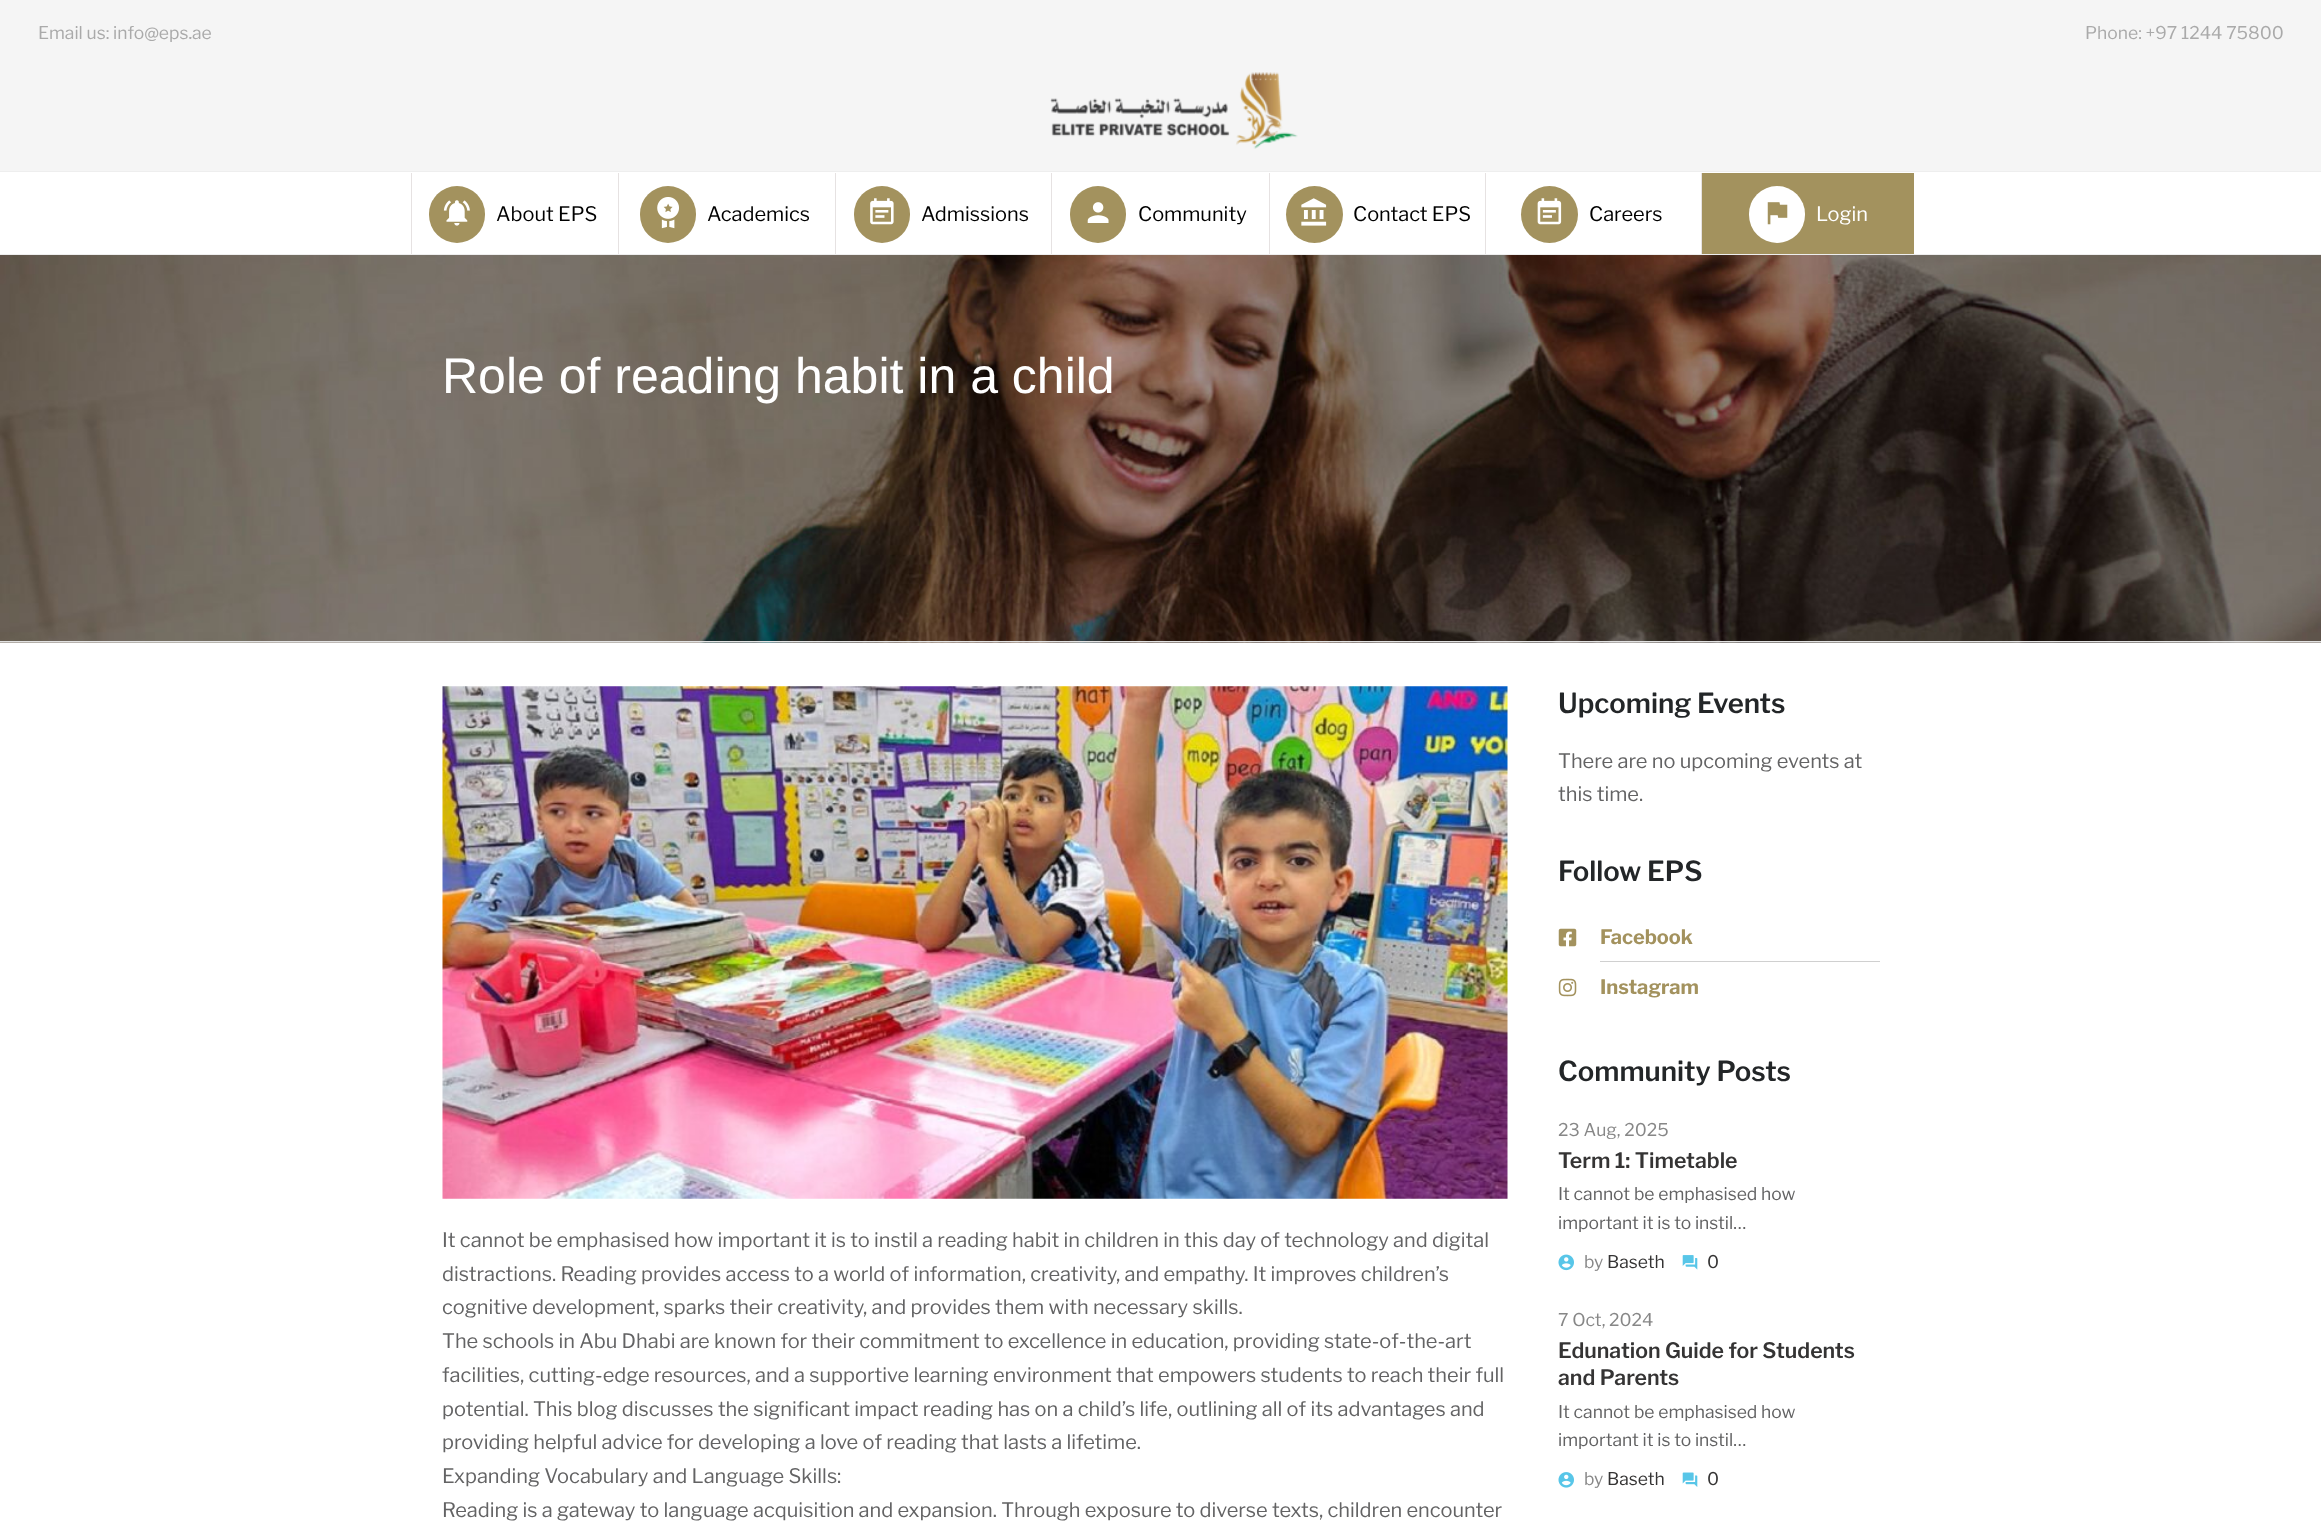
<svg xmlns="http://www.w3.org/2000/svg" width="2321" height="1536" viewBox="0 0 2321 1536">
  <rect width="100%" height="100%" fill="rgb(255,255,255)"/>
  <rect x="0" y="254" width="2321" height="1" fill="rgb(238,238,238)"/>
  <rect x="0" y="171" width="2321" height="1" fill="rgb(238,238,238)"/>
  <rect x="0" y="0" width="2321" height="171" fill="rgb(245,245,245)"/>
  <g font-family="Libre Franklin" font-size="17.5" fill="rgb(170,170,170)">
    <text x="38" y="39">Email us: info@eps.ae</text>
    <text x="2085" y="39">Phone: +97 1244 75800</text>
  </g>
  <image x="1050" y="72" width="248" height="77" href="pic1.png"/>
  <rect x="411" y="173" width="1" height="81" fill="rgb(230,226,226)"/>
  <rect x="429" y="186" width="56" height="57" rx="28" fill="rgb(163,146,94)"/>
  <image x="443" y="200" width="27" height="26" href="pic2.png"/>
  <text x="496" y="221" font-family="Libre Franklin" font-size="20" fill="rgb(0,0,0)">About EPS</text>
  <rect x="618" y="173" width="1" height="81" fill="rgb(230,226,226)"/>
  <rect x="640" y="186" width="56" height="57" rx="28" fill="rgb(163,146,94)"/>
  <image x="657" y="197" width="22" height="32" href="pic3.png"/>
  <text x="707" y="221" font-family="Libre Franklin" font-size="20" fill="rgb(0,0,0)">Academics</text>
  <rect x="835" y="173" width="1" height="81" fill="rgb(230,226,226)"/>
  <rect x="854" y="186" width="56" height="57" rx="28" fill="rgb(163,146,94)"/>
  <image x="870" y="198" width="24" height="27" href="pic4.png"/>
  <text x="921" y="221" font-family="Libre Franklin" font-size="20" fill="rgb(0,0,0)">Admissions</text>
  <rect x="1051" y="173" width="1" height="81" fill="rgb(230,226,226)"/>
  <rect x="1070" y="186" width="56" height="57" rx="28" fill="rgb(163,146,94)"/>
  <image x="1087" y="202" width="22" height="21" href="pic5.png"/>
  <text x="1138" y="221" font-family="Libre Franklin" font-size="20" fill="rgb(0,0,0)">Community</text>
  <rect x="1269" y="173" width="1" height="81" fill="rgb(230,226,226)"/>
  <circle cx="1314.5" cy="214.5" r="28.5" fill="rgb(163,146,94)"/>
  <image x="1301" y="198" width="26" height="28" href="pic6.png"/>
  <text x="1353" y="221" font-family="Libre Franklin" font-size="20" fill="rgb(0,0,0)">Contact EPS</text>
  <rect x="1485" y="173" width="1" height="81" fill="rgb(230,226,226)"/>
  <circle cx="1549.5" cy="214.5" r="28.5" fill="rgb(163,146,94)"/>
  <image x="1537" y="198" width="25" height="27" href="pic7.png"/>
  <text x="1589" y="221" font-family="Libre Franklin" font-size="20" fill="rgb(0,0,0)">Careers</text>
  <rect x="1702" y="173" width="212" height="81" fill="rgb(163,146,94)"/>
  <rect x="1701" y="173" width="1" height="81" fill="rgb(230,226,226)"/>
  <rect x="1749" y="186" width="56" height="57" rx="28" fill="rgb(255,255,255)"/>
  <image x="1767" y="202" width="21" height="23" href="pic8.png"/>
  <text x="1816" y="221" font-family="Libre Franklin" font-size="20" fill="rgb(255,255,255)">Login</text>
  <image x="0" y="255" width="2321" height="388" href="pic9.png"/>
  <rect x="0" y="641" width="2321" height="1" fill="rgb(225,225,225)"/>
  <text x="442" y="393" font-family="Liberation Sans" font-size="50" fill="rgb(255,255,255)">Role of reading habit in a child</text>
  <image x="442" y="686" width="1066" height="513" href="pic10.png"/>
  <g font-family="Libre Franklin" font-size="20" fill="rgb(99,99,100)">
    <text>
      <tspan x="442" y="1247">It cannot be emphasised how important it is to instil a reading habit in children in this day of technology and digital</tspan>
      <tspan x="442" y="1281">distractions. Reading provides access to a world of information, creativity, and empathy. It improves children’s</tspan>
      <tspan x="442" y="1314">cognitive development, sparks their creativity, and provides them with necessary skills.</tspan>
      <tspan x="442" y="1348">The schools in Abu Dhabi are known for their commitment to excellence in education, providing state-of-the-art</tspan>
      <tspan x="442" y="1382">facilities, cutting-edge resources, and a supportive learning environment that empowers students to reach their full</tspan>
      <tspan x="442" y="1416">potential. This blog discusses the significant impact reading has on a child’s life, outlining all of its advantages and</tspan>
      <tspan x="442" y="1449">providing helpful advice for developing a love of reading that lasts a lifetime.</tspan>
      <tspan x="442" y="1483">Expanding Vocabulary and Language Skills:</tspan>
      <tspan x="442" y="1517">Reading is a gateway to language acquisition and expansion. Through exposure to diverse texts, children encounter</tspan>
    </text>
  </g>
  <text x="1558" y="713" font-family="Libre Franklin" font-size="27.5" font-weight="600" fill="rgb(35,38,40)">Upcoming Events</text>
  <g font-family="Libre Franklin" font-size="20" fill="rgb(99,99,100)">
    <text>
      <tspan x="1558" y="768">There are no upcoming events at</tspan>
      <tspan x="1558" y="801">this time.</tspan>
    </text>
  </g>
  <text x="1558" y="881" font-family="Libre Franklin" font-size="27.5" font-weight="600" fill="rgb(35,38,40)">Follow EPS</text>
  <rect x="1600" y="961" width="280" height="1" fill="rgb(208,208,208)"/>
  <image x="1558" y="928" width="19" height="19" href="pic11.png"/>
  <text x="1600" y="944" font-family="Libre Franklin" font-size="20" font-weight="bold" fill="rgb(163,146,94)">Facebook</text>
  <image x="1558" y="978" width="19" height="19" href="pic12.png"/>
  <text x="1600" y="994" font-family="Libre Franklin" font-size="20" font-weight="bold" fill="rgb(163,146,94)">Instagram</text>
  <text x="1558" y="1081" font-family="Libre Franklin" font-size="27.5" font-weight="600" fill="rgb(35,38,40)">Community Posts</text>
  <text x="1558" y="1136" font-family="Libre Franklin" font-size="17.5" fill="rgb(135,135,135)">23 Aug, 2025</text>
  <text x="1558" y="1168" font-family="Libre Franklin" font-size="21.25" font-weight="600" fill="rgb(53,52,52)">Term 1: Timetable</text>
  <g font-family="Libre Franklin" font-size="17.5" fill="rgb(99,99,100)">
    <text>
      <tspan x="1558" y="1200">It cannot be emphasised how</tspan>
      <tspan x="1558" y="1229">important it is to instil…</tspan>
    </text>
  </g>
  <image x="1558" y="1254" width="16" height="17" href="pic13.png"/>
  <text x="1584" y="1268" font-family="Libre Franklin" font-size="17.5" fill="rgb(135,135,135)">by</text>
  <text x="1607" y="1268" font-family="Libre Franklin" font-size="17.5" fill="rgb(53,52,52)">Baseth</text>
  <image x="1682" y="1255" width="16" height="15" href="pic14.png"/>
  <text x="1707" y="1268" font-family="Libre Franklin" font-size="17.5" fill="rgb(53,52,52)">0</text>
  <text x="1558" y="1326" font-family="Libre Franklin" font-size="17.5" fill="rgb(135,135,135)">7 Oct, 2024</text>
  <g font-family="Libre Franklin" font-size="21.25" font-weight="600" fill="rgb(53,52,52)">
    <text>
      <tspan x="1558" y="1358">Edunation Guide for Students</tspan>
      <tspan x="1558" y="1385">and Parents</tspan>
    </text>
  </g>
  <g font-family="Libre Franklin" font-size="17.5" fill="rgb(99,99,100)">
    <text>
      <tspan x="1558" y="1418">It cannot be emphasised how</tspan>
      <tspan x="1558" y="1446">important it is to instil…</tspan>
    </text>
  </g>
  <image x="1558" y="1472" width="16" height="16" href="pic15.png"/>
  <text x="1584" y="1485" font-family="Libre Franklin" font-size="17.5" fill="rgb(135,135,135)">by</text>
  <text x="1607" y="1485" font-family="Libre Franklin" font-size="17.5" fill="rgb(53,52,52)">Baseth</text>
  <image x="1682" y="1472" width="16" height="15" href="pic16.png"/>
  <text x="1707" y="1485" font-family="Libre Franklin" font-size="17.5" fill="rgb(53,52,52)">0</text>
</svg>
